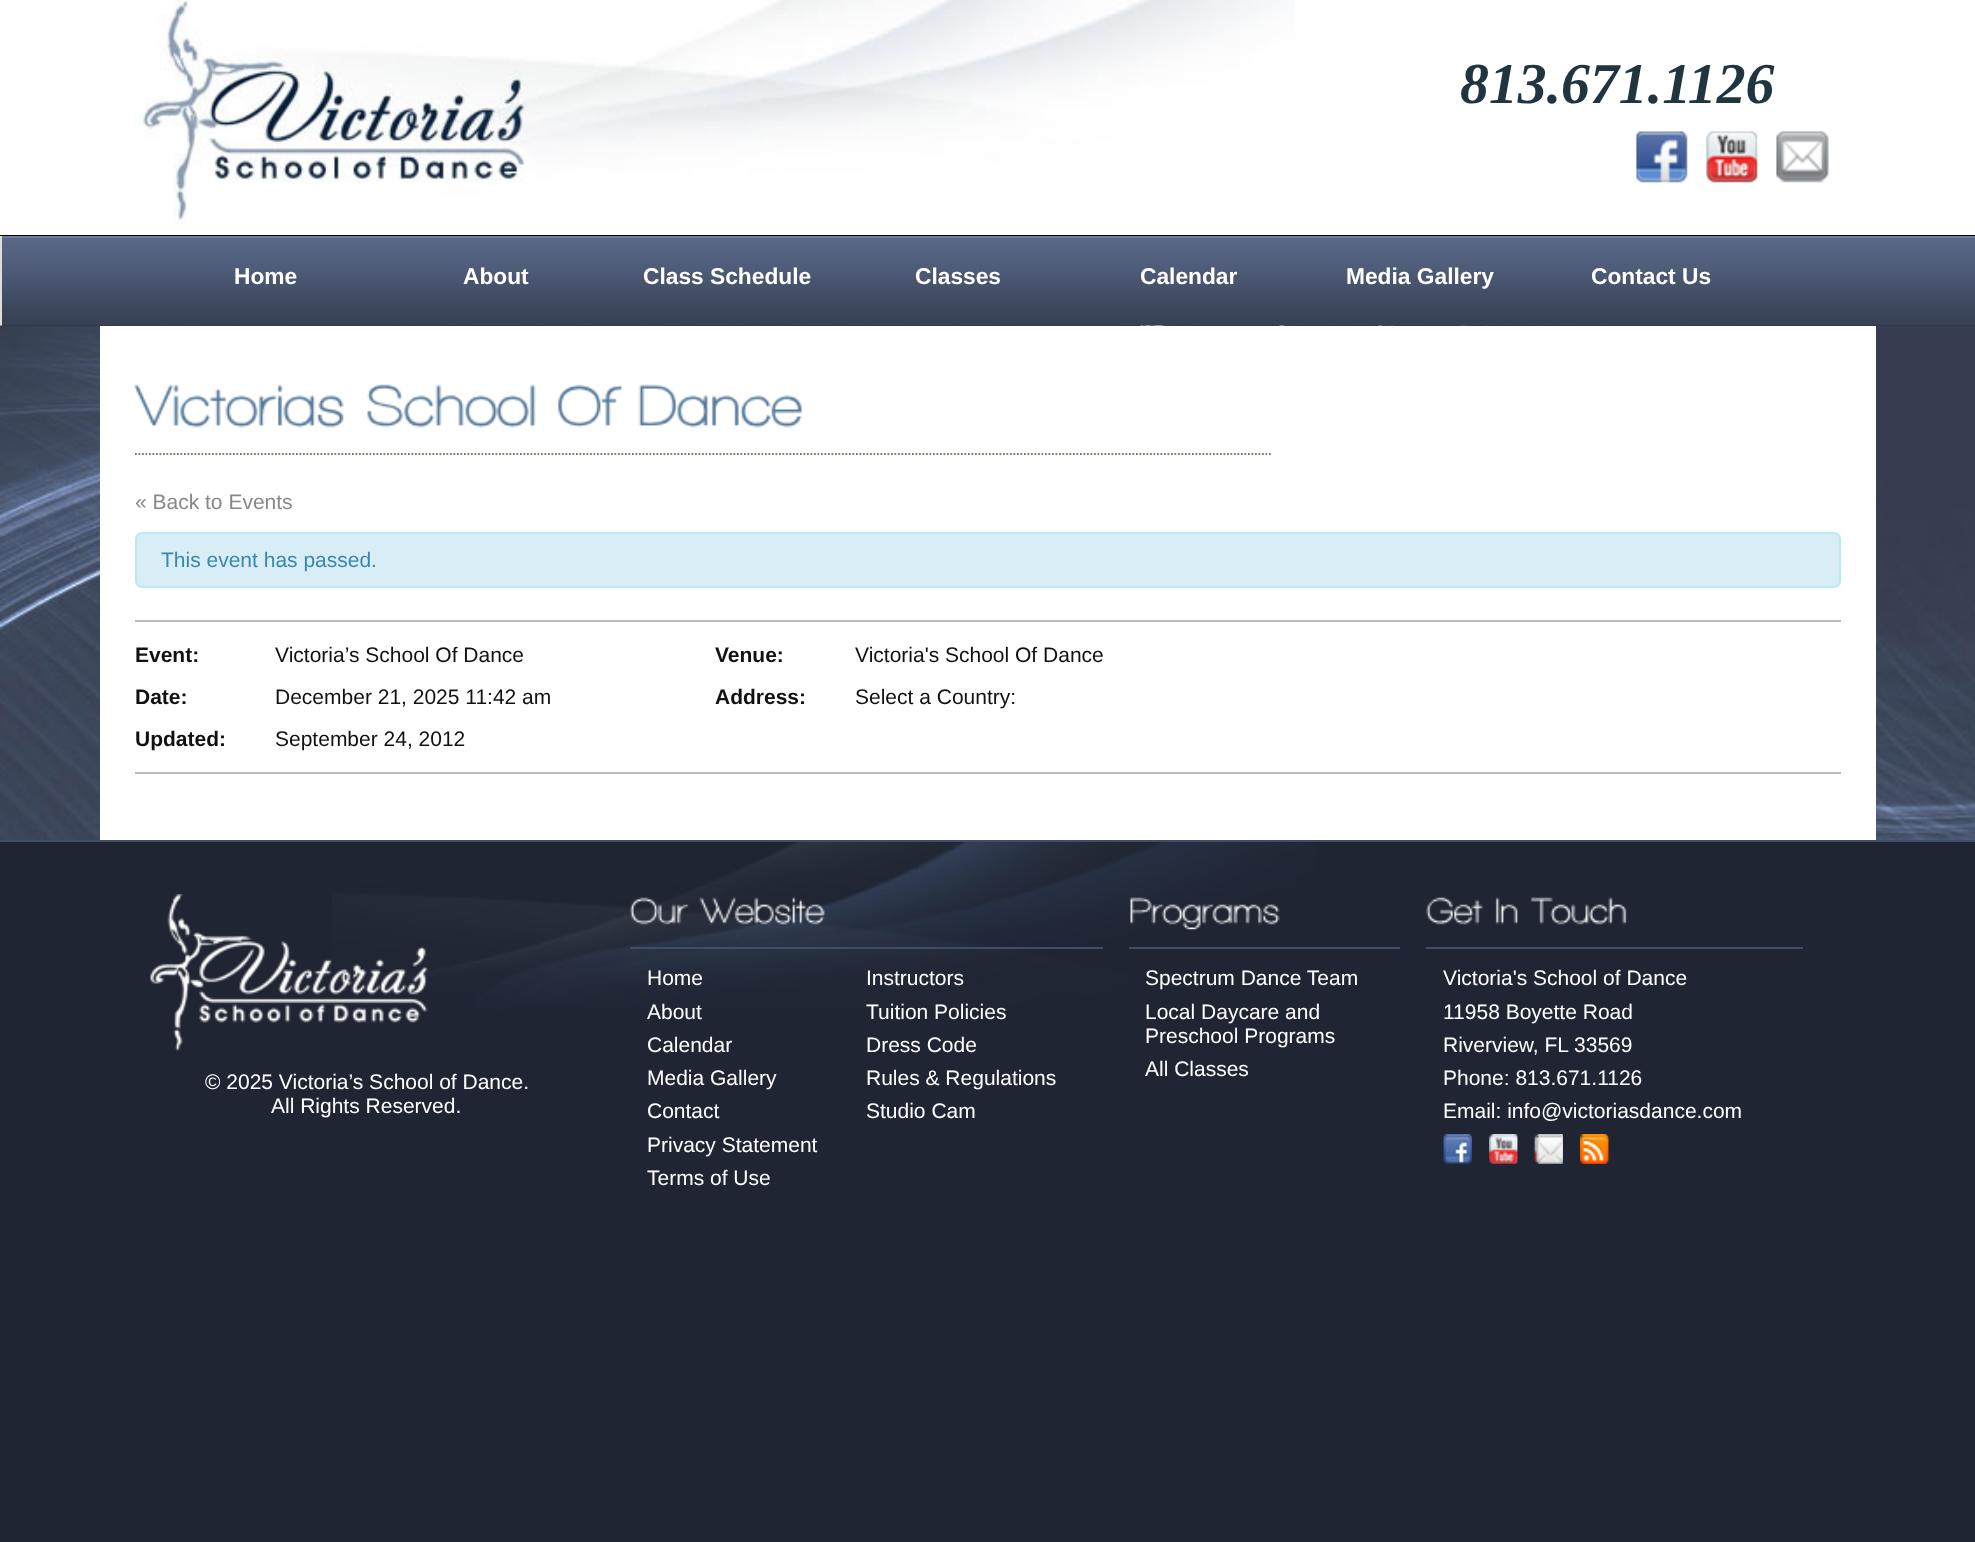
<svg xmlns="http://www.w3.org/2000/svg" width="1975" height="1542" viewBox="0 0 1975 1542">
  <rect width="100%" height="100%" fill="rgb(31,37,51)"/>
  <rect x="0" y="0" width="1975" height="235" fill="rgb(255,255,255)"/>
  <rect x="0" y="235" width="1975" height="1" fill="rgb(0,0,0)"/>
  <image x="135" y="0" width="1160" height="224" href="pic1.png"/>
  <text x="1460" y="103" font-family="Liberation Serif" font-size="57.75" font-weight="bold" font-style="italic" fill="rgb(33,53,64)">813.671.1126</text>
  <image x="1636" y="131" width="52" height="52" href="pic2.png"/>
  <image x="1706" y="131" width="52" height="52" href="pic3.png"/>
  <image x="1776" y="131" width="53" height="52" href="pic4.png"/>
  <image x="2" y="238" width="1973" height="88" href="pic5.png"/>
  <rect x="0" y="236" width="1975" height="2" fill="rgb(106,126,161)"/>
  <rect x="0" y="236" width="2" height="90" fill="rgb(222,222,222)"/>
  <g font-family="Liberation Sans" font-size="22.75" font-weight="bold" fill="rgb(255,255,255)">
    <text x="234" y="284">Home</text>
    <text x="463" y="284">About</text>
    <text x="643" y="284">Class Schedule</text>
    <text x="915" y="284">Classes</text>
    <text x="1140" y="284">Calendar</text>
    <text x="1346" y="284">Media Gallery</text>
    <text x="1591" y="284">Contact Us</text>
  </g>
  <image x="0" y="325" width="1975" height="515" href="pic6.png"/>
  <rect x="100" y="326" width="1776" height="514" fill="rgb(255,255,255)"/>
  <path d="M135 454H1272" fill="none" stroke="rgb(131,117,104)" stroke-width="1.8" stroke-dasharray="1.75 1.75"/>
  <image x="134" y="384" width="210" height="44" href="pic7.png"/>
  <image x="367" y="384" width="169" height="44" href="pic8.png"/>
  <image x="557" y="384" width="65" height="44" href="pic9.png"/>
  <image x="638" y="384" width="164" height="44" href="pic10.png"/>
  <text x="135" y="509" font-family="Liberation Sans" font-size="21" fill="rgb(136,136,136)">« Back to Events</text>
  <rect x="136" y="533" width="1704" height="54" rx="6" fill="rgb(217,237,247)" stroke="rgb(188,232,241)" stroke-width="2"/>
  <text x="161" y="567" font-family="Liberation Sans" font-size="21" fill="rgb(58,135,173)">This event has passed.</text>
  <rect x="135" y="620" width="1706" height="2" fill="rgb(187,187,187)"/>
  <rect x="135" y="772" width="1706" height="2" fill="rgb(187,187,187)"/>
  <text x="135" y="662" font-family="Liberation Sans" font-size="21" font-weight="bold" fill="rgb(17,17,17)">Event:</text>
  <text x="275" y="662" font-family="Liberation Sans" font-size="21" fill="rgb(17,17,17)">Victoria’s School Of Dance</text>
  <text x="135" y="704" font-family="Liberation Sans" font-size="21" font-weight="bold" fill="rgb(17,17,17)">Date:</text>
  <text x="275" y="704" font-family="Liberation Sans" font-size="21" fill="rgb(17,17,17)">December 21, 2025 11:42 am</text>
  <text x="135" y="746" font-family="Liberation Sans" font-size="21" font-weight="bold" fill="rgb(17,17,17)">Updated:</text>
  <text x="275" y="746" font-family="Liberation Sans" font-size="21" fill="rgb(17,17,17)">September 24, 2012</text>
  <text x="715" y="662" font-family="Liberation Sans" font-size="21" font-weight="bold" fill="rgb(17,17,17)">Venue:</text>
  <text x="855" y="662" font-family="Liberation Sans" font-size="21" fill="rgb(17,17,17)">Victoria's School Of Dance</text>
  <text x="715" y="704" font-family="Liberation Sans" font-size="21" font-weight="bold" fill="rgb(17,17,17)">Address:</text>
  <text x="855" y="704" font-family="Liberation Sans" font-size="21" fill="rgb(17,17,17)">Select a Country:</text>
  <image x="332" y="842" width="983" height="167" href="pic11.png"/>
  <rect x="0" y="840" width="1975" height="2" fill="rgb(63,77,103)"/>
  <rect x="630" y="947" width="473" height="2" fill="rgb(63,77,103)"/>
  <image x="630" y="897" width="59" height="28" href="pic12.png"/>
  <image x="699" y="897" width="126" height="28" href="pic13.png"/>
  <g font-family="Liberation Sans" font-size="21" fill="rgb(255,255,255)">
    <text>
      <tspan x="647" y="985">Home</tspan>
      <tspan x="647" y="1019">About</tspan>
      <tspan x="647" y="1052">Calendar</tspan>
      <tspan x="647" y="1085">Media Gallery</tspan>
      <tspan x="647" y="1118">Contact</tspan>
      <tspan x="647" y="1152">Privacy Statement</tspan>
      <tspan x="647" y="1185">Terms of Use</tspan>
    </text>
    <text>
      <tspan x="866" y="985">Instructors</tspan>
      <tspan x="866" y="1019">Tuition Policies</tspan>
      <tspan x="866" y="1052">Dress Code</tspan>
      <tspan x="866" y="1085">Rules &amp; Regulations</tspan>
      <tspan x="866" y="1118">Studio Cam</tspan>
    </text>
  </g>
  <rect x="1129" y="947" width="271" height="2" fill="rgb(63,77,103)"/>
  <image x="1130" y="897" width="150" height="33" href="pic14.png"/>
  <g font-family="Liberation Sans" font-size="21" fill="rgb(255,255,255)">
    <text>
      <tspan x="1145" y="985">Spectrum Dance Team</tspan>
      <tspan x="1145" y="1019">Local Daycare and</tspan>
      <tspan x="1145" y="1043">Preschool Programs</tspan>
      <tspan x="1145" y="1076">All Classes</tspan>
    </text>
  </g>
  <rect x="1426" y="947" width="377" height="2" fill="rgb(63,77,103)"/>
  <image x="1426" y="897" width="57" height="28" href="pic15.png"/>
  <image x="1495" y="897" width="23" height="28" href="pic16.png"/>
  <image x="1530" y="897" width="97" height="28" href="pic17.png"/>
  <g font-family="Liberation Sans" font-size="21" fill="rgb(255,255,255)">
    <text>
      <tspan x="1443" y="985">Victoria's School of Dance</tspan>
      <tspan x="1443" y="1019">11958 Boyette Road</tspan>
      <tspan x="1443" y="1052">Riverview, FL 33569</tspan>
      <tspan x="1443" y="1085">Phone: 813.671.1126</tspan>
      <tspan x="1443" y="1118">Email: info@victoriasdance.com</tspan>
    </text>
  </g>
  <image x="1443" y="1134" width="29" height="28" href="pic18.png"/>
  <image x="1443" y="1136" width="29" height="28" href="pic19.png"/>
  <image x="1489" y="1134" width="29" height="28" href="pic20.png"/>
  <image x="1489" y="1135" width="29" height="29" href="pic21.png"/>
  <image x="1534" y="1134" width="29" height="28" href="pic22.png"/>
  <image x="1534" y="1135" width="29" height="29" href="pic23.png"/>
  <image x="1580" y="1134" width="29" height="28" href="pic24.png"/>
  <image x="1580" y="1135" width="29" height="29" href="pic25.png"/>
  <image x="150" y="894" width="278" height="157" href="pic26.png"/>
  <g font-family="Liberation Sans" font-size="21" fill="rgb(255,255,255)">
    <text x="205" y="1089">© 2025 Victoria’s School of Dance.</text>
    <text x="271" y="1113">All Rights Reserved.</text>
  </g>
</svg>
